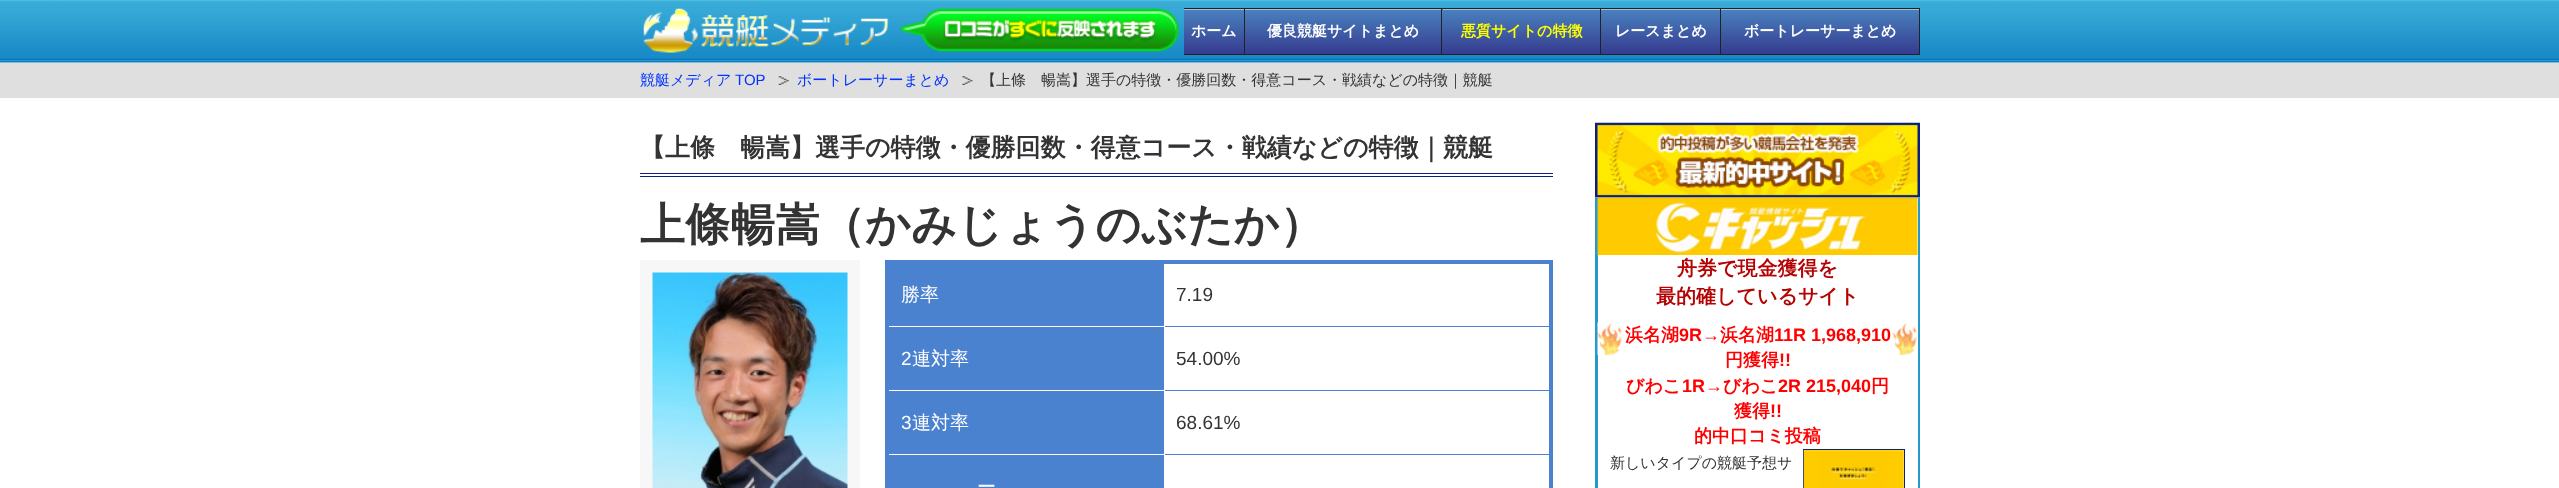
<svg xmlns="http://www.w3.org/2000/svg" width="2559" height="488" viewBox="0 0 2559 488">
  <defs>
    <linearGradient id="g1" gradientUnits="userSpaceOnUse" x1="1214" y1="9" x2="1214" y2="54"><stop offset="0" stop-color="rgb(73,130,191)"/><stop offset="1" stop-color="rgb(54,59,143)"/></linearGradient>
    <linearGradient id="g2" gradientUnits="userSpaceOnUse" x1="1343" y1="9" x2="1343" y2="54"><stop offset="0" stop-color="rgb(73,130,191)"/><stop offset="1" stop-color="rgb(54,59,143)"/></linearGradient>
    <linearGradient id="g3" gradientUnits="userSpaceOnUse" x1="1521" y1="9" x2="1521" y2="54"><stop offset="0" stop-color="rgb(73,130,191)"/><stop offset="1" stop-color="rgb(54,59,143)"/></linearGradient>
    <linearGradient id="g4" gradientUnits="userSpaceOnUse" x1="1661" y1="9" x2="1661" y2="54"><stop offset="0" stop-color="rgb(73,130,191)"/><stop offset="1" stop-color="rgb(54,59,143)"/></linearGradient>
    <linearGradient id="g5" gradientUnits="userSpaceOnUse" x1="1820" y1="9" x2="1820" y2="54"><stop offset="0" stop-color="rgb(73,130,191)"/><stop offset="1" stop-color="rgb(54,59,143)"/></linearGradient>
  </defs>
  <rect width="100%" height="100%" fill="rgb(255,255,255)"/>
  <image x="0" y="0" width="2559" height="63" href="pic1.png"/>
  <image x="643" y="8" width="536" height="45" href="pic2.png"/>
  <rect x="1184" y="10" width="60" height="44" fill="url(#g1)"/>
  <rect x="1184" y="9" width="60" height="1" fill="rgb(164,192,223)"/>
  <rect x="1184" y="8" width="736" height="1" fill="rgb(34,34,34)"/>
  <rect x="1244" y="8" width="1" height="47" fill="rgb(34,34,34)"/>
  <rect x="1184" y="54" width="61" height="1" fill="rgb(34,34,34)"/>
  <text x="1191" y="36" font-family="WenQuanYi Zen Hei" font-size="15" font-weight="bold" fill="rgb(255,255,255)">ホーム</text>
  <rect x="1245" y="9" width="198" height="45" fill="url(#g2)"/>
  <rect x="1245" y="9" width="196" height="1" fill="rgb(164,192,223)"/>
  <rect x="1441" y="8" width="1" height="47" fill="rgb(34,34,34)"/>
  <rect x="1245" y="54" width="198" height="1" fill="rgb(34,34,34)"/>
  <text x="1267" y="36" font-family="WenQuanYi Zen Hei" font-size="15" font-weight="bold" fill="rgb(255,255,255)">優良競艇サイトまとめ</text>
  <rect x="1443" y="10" width="157" height="44" fill="url(#g3)"/>
  <rect x="1443" y="9" width="157" height="1" fill="rgb(164,192,223)"/>
  <rect x="1600" y="8" width="1" height="47" fill="rgb(34,34,34)"/>
  <rect x="1443" y="54" width="158" height="1" fill="rgb(34,34,34)"/>
  <text x="1461" y="36" font-family="WenQuanYi Zen Hei" font-size="15" font-weight="bold" fill="rgb(255,255,0)">悪質サイトの特徴</text>
  <rect x="1601" y="10" width="119" height="44" fill="url(#g4)"/>
  <rect x="1601" y="9" width="119" height="1" fill="rgb(164,192,223)"/>
  <rect x="1720" y="8" width="1" height="47" fill="rgb(34,34,34)"/>
  <rect x="1601" y="54" width="120" height="1" fill="rgb(34,34,34)"/>
  <text x="1615" y="36" font-family="WenQuanYi Zen Hei" font-size="15" font-weight="bold" fill="rgb(255,255,255)">レースまとめ</text>
  <rect x="1721" y="10" width="198" height="44" fill="url(#g5)"/>
  <rect x="1721" y="9" width="198" height="1" fill="rgb(164,192,223)"/>
  <rect x="1919" y="8" width="1" height="47" fill="rgb(34,34,34)"/>
  <rect x="1721" y="54" width="199" height="1" fill="rgb(34,34,34)"/>
  <text x="1744" y="36" font-family="WenQuanYi Zen Hei" font-size="15" font-weight="bold" fill="rgb(255,255,255)">ボートレーサーまとめ</text>
  <rect x="0" y="63" width="2559" height="35" fill="rgb(223,223,223)"/>
  <text x="640" y="85" font-family="WenQuanYi Zen Hei" font-size="15" font-weight="500" fill="rgb(0,51,255)">競艇メディア</text>
  <text x="735" y="85" font-family="Liberation Sans" font-size="15" fill="rgb(0,51,255)">TOP</text>
  <image x="778" y="76" width="11" height="9" href="pic3.png"/>
  <text x="797" y="85" font-family="WenQuanYi Zen Hei" font-size="15" font-weight="500" fill="rgb(0,51,255)">ボートレーサーまとめ</text>
  <image x="962" y="76" width="11" height="9" href="pic4.png"/>
  <text x="981" y="85" font-family="WenQuanYi Zen Hei" font-size="15" font-weight="500" fill="rgb(51,51,51)">【上條　暢嵩】選手の特徴・優勝回数・得意コース・戦績などの特徴｜競艇</text>
  <rect x="640" y="173" width="913" height="1" fill="rgb(7,34,125)"/>
  <rect x="640" y="176" width="913" height="1" fill="rgb(7,34,125)"/>
  <text x="640" y="156" font-family="WenQuanYi Zen Hei" font-size="25" font-weight="bold" fill="rgb(51,51,51)">【上條　暢嵩】選手の特徴・優勝回数・得意コース・戦績などの特徴｜競艇</text>
  <text x="640" y="240" font-family="WenQuanYi Zen Hei" font-size="45" font-weight="bold" fill="rgb(51,51,51)">上條暢嵩（かみじょうのぶたか）</text>
  <rect x="640" y="260" width="220" height="228" fill="rgb(247,247,247)"/>
  <image x="652" y="272" width="196" height="216" href="pic5.png"/>
  <rect x="885" y="260" width="668" height="4" fill="rgb(74,130,207)"/>
  <rect x="1164" y="326" width="387" height="1" fill="rgb(74,130,207)"/>
  <rect x="1164" y="390" width="387" height="1" fill="rgb(74,130,207)"/>
  <rect x="1164" y="454" width="387" height="1" fill="rgb(74,130,207)"/>
  <rect x="1549" y="260" width="4" height="228" fill="rgb(74,130,207)"/>
  <rect x="889" y="264" width="275" height="126" fill="rgb(74,130,207)"/>
  <rect x="886" y="326" width="279" height="1" fill="rgb(255,255,255)"/>
  <rect x="885" y="260" width="4" height="228" fill="rgb(74,130,207)"/>
  <text x="901" y="301" font-family="WenQuanYi Zen Hei" font-size="19" font-weight="500" fill="rgb(255,255,255)">勝率</text>
  <text x="1176" y="301" font-family="Liberation Sans" font-size="19" fill="rgb(51,51,51)">7.19</text>
  <rect x="1164" y="390" width="1" height="1" fill="rgb(255,255,255)"/>
  <text x="901" y="365" font-family="Liberation Sans" font-size="19" fill="rgb(255,255,255)">2</text>
  <text x="912" y="365" font-family="WenQuanYi Zen Hei" font-size="19" font-weight="500" fill="rgb(255,255,255)">連対率</text>
  <text x="1176" y="365" font-family="Liberation Sans" font-size="19" fill="rgb(51,51,51)">54.00%</text>
  <rect x="889" y="391" width="275" height="63" fill="rgb(74,130,207)"/>
  <rect x="1164" y="454" width="1" height="1" fill="rgb(255,255,255)"/>
  <text x="901" y="429" font-family="Liberation Sans" font-size="19" fill="rgb(255,255,255)">3</text>
  <text x="912" y="429" font-family="WenQuanYi Zen Hei" font-size="19" font-weight="500" fill="rgb(255,255,255)">連対率</text>
  <text x="1176" y="429" font-family="Liberation Sans" font-size="19" fill="rgb(51,51,51)">68.61%</text>
  <rect x="889" y="455" width="275" height="33" fill="rgb(74,130,207)"/>
  <text x="977" y="493" font-family="WenQuanYi Zen Hei" font-size="19" font-weight="500" fill="rgb(255,255,255)">ー</text>
  <image x="1595" y="122" width="325" height="76" href="pic6.png"/>
  <rect x="1918" y="198" width="2" height="290" fill="rgb(37,152,206)"/>
  <rect x="1595" y="198" width="3" height="290" fill="rgb(37,152,206)"/>
  <image x="1597" y="197" width="321" height="58" href="pic7.png"/>
  <g font-family="WenQuanYi Zen Hei" font-size="20" font-weight="bold" fill="rgb(181,3,3)">
    <text x="1677" y="275">舟券で現金獲得を</text>
    <text x="1656" y="303">最的確しているサイト</text>
  </g>
  <image x="1597" y="322" width="26" height="33" href="pic8.png"/>
  <text x="1625" y="341" font-family="WenQuanYi Zen Hei" font-size="18" font-weight="bold" fill="rgb(255,0,0)">浜名湖</text>
  <text x="1679" y="341" font-family="Liberation Sans" font-size="18" font-weight="bold" fill="rgb(255,0,0)">9R→</text>
  <text x="1720" y="341" font-family="WenQuanYi Zen Hei" font-size="18" font-weight="bold" fill="rgb(255,0,0)">浜名湖</text>
  <text x="1774" y="341" font-family="Liberation Sans" font-size="18" font-weight="bold" fill="rgb(255,0,0)">11R 1,968,910</text>
  <text x="1725" y="366" font-family="WenQuanYi Zen Hei" font-size="18" font-weight="bold" fill="rgb(255,0,0)">円獲得</text>
  <text x="1779" y="366" font-family="Liberation Sans" font-size="18" font-weight="bold" fill="rgb(255,0,0)">!!</text>
  <text x="1626" y="392" font-family="WenQuanYi Zen Hei" font-size="18" font-weight="bold" fill="rgb(255,0,0)">びわこ</text>
  <text x="1682" y="392" font-family="Liberation Sans" font-size="18" font-weight="bold" fill="rgb(255,0,0)">1R→</text>
  <text x="1723" y="392" font-family="WenQuanYi Zen Hei" font-size="18" font-weight="bold" fill="rgb(255,0,0)">びわこ</text>
  <text x="1778" y="392" font-family="Liberation Sans" font-size="18" font-weight="bold" fill="rgb(255,0,0)">2R 215,040</text>
  <g font-family="WenQuanYi Zen Hei" font-size="18" font-weight="bold" fill="rgb(255,0,0)">
    <text x="1871" y="392">円</text>
    <text x="1734" y="417">獲得</text>
  </g>
  <text x="1770" y="417" font-family="Liberation Sans" font-size="18" font-weight="bold" fill="rgb(255,0,0)">!!</text>
  <text x="1694" y="442" font-family="WenQuanYi Zen Hei" font-size="18" font-weight="bold" fill="rgb(255,0,0)">的中口コミ投稿</text>
  <image x="1892" y="322" width="26" height="33" href="pic9.png"/>
  <text x="1610" y="468" font-family="WenQuanYi Zen Hei" font-size="15" font-weight="500" fill="rgb(51,51,51)">新しいタイプの競艇予想サ</text>
  <rect x="1803.5" y="449.5" width="101" height="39" fill="none" stroke="rgb(9,32,125)"/>
  <image x="1803" y="450" width="101" height="38" href="pic10.png"/>
</svg>
